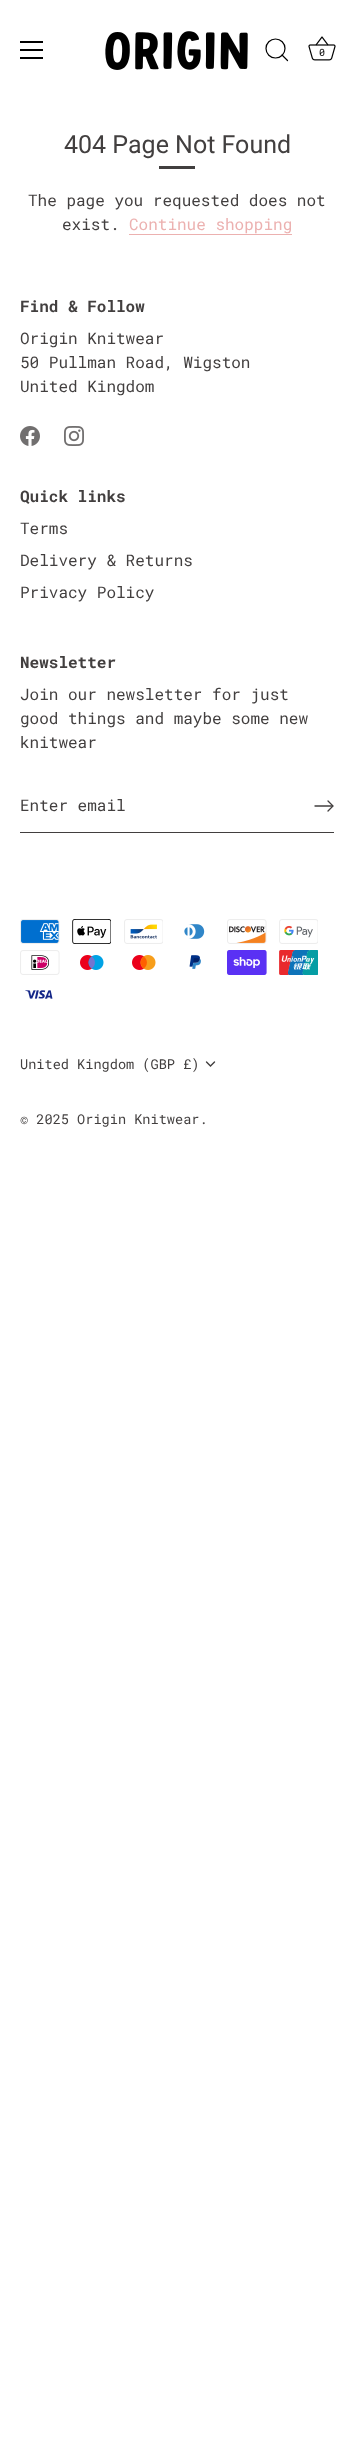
<svg xmlns="http://www.w3.org/2000/svg" width="354" height="2463" viewBox="0 0 354 2463">
  <rect width="100%" height="100%" fill="rgb(255,255,255)"/>
  <rect x="20" y="41" width="23" height="2" fill="rgb(0,0,0)"/>
  <rect x="20" y="49" width="23" height="2" fill="rgb(0,0,0)"/>
  <rect x="20" y="57" width="23" height="2" fill="rgb(0,0,0)"/>
  <image x="105" y="31" width="143" height="39" href="pic1.png"/>
  <circle cx="275.5" cy="48.5" r="9.5" fill="none" stroke="rgb(0,0,0)" stroke-width="1.2"/>
  <path d="M287.5 60.5L282 55" fill="none" stroke="rgb(0,0,0)" stroke-width="1.2" stroke-linecap="round" stroke-linejoin="round"/>
  <image x="308" y="36" width="28" height="25" href="pic2.png"/>
  <text x="319" y="56" font-family="Roboto Mono" font-size="10" fill="rgb(0,0,0)">0</text>
  <text x="64" y="153" font-family="Roboto" font-size="25" fill="rgb(66,63,63)">404 Page Not Found</text>
  <rect x="159" y="166" width="36" height="3" fill="rgb(65,63,63)"/>
  <g font-family="Roboto Mono" font-size="16" fill="rgb(66,63,63)">
    <text x="28" y="206">The page you requested does not</text>
    <text x="62" y="230">exist.</text>
  </g>
  <text x="129" y="230" font-family="Roboto Mono" font-size="16" fill="rgb(236,177,176)">Continue shopping</text>
  <rect x="129" y="234" width="163" height="1" fill="rgb(236,177,176)"/>
  <text x="20" y="312" font-family="Roboto Mono" font-size="16" font-weight="bold" fill="rgb(66,63,63)">Find &amp; Follow</text>
  <g font-family="Roboto Mono" font-size="16" fill="rgb(66,63,63)">
    <text>
      <tspan x="20" y="344">Origin Knitwear</tspan>
      <tspan x="20" y="368">50 Pullman Road, Wigston</tspan>
      <tspan x="20" y="392">United Kingdom</tspan>
    </text>
  </g>
  <image x="20" y="426" width="20" height="20" href="pic3.png"/>
  <image x="64" y="426" width="20" height="20" href="pic4.png"/>
  <text x="20" y="502" font-family="Roboto Mono" font-size="16" font-weight="bold" fill="rgb(66,63,63)">Quick links</text>
  <g font-family="Roboto Mono" font-size="16" fill="rgb(66,63,63)">
    <text x="20" y="534">Terms</text>
    <text x="20" y="566">Delivery &amp; Returns</text>
    <text x="20" y="598">Privacy Policy</text>
  </g>
  <text x="20" y="668" font-family="Roboto Mono" font-size="16" font-weight="bold" fill="rgb(66,63,63)">Newsletter</text>
  <g font-family="Roboto Mono" font-size="16" fill="rgb(66,63,63)">
    <text>
      <tspan x="20" y="700">Join our newsletter for just</tspan>
      <tspan x="20" y="724">good things and maybe some new</tspan>
      <tspan x="20" y="748">knitwear</tspan>
    </text>
  </g>
  <rect x="20" y="832" width="314" height="1" fill="rgb(66,63,63)"/>
  <text x="20" y="811" font-family="Roboto Mono" font-size="16" fill="rgb(66,63,63)">Enter email</text>
  <path d="M328 811L333 806L328 801" fill="none" stroke="rgb(66,63,63)" stroke-width="1.3" stroke-linecap="round"/>
  <path d="M332 806H315" fill="none" stroke="rgb(66,63,63)" stroke-width="1.3" stroke-linecap="round" stroke-linejoin="round"/>
  <image x="20" y="919" width="40" height="25" href="pic5.png"/>
  <image x="72" y="919" width="39" height="25" href="pic6.png"/>
  <image x="124" y="919" width="39" height="25" href="pic7.png"/>
  <image x="184" y="924" width="21" height="15" href="pic8.png"/>
  <image x="227" y="919" width="40" height="25" href="pic9.png"/>
  <image x="279" y="919" width="39" height="25" href="pic10.png"/>
  <image x="20" y="950" width="40" height="25" href="pic11.png"/>
  <image x="80" y="955" width="24" height="15" href="pic12.png"/>
  <image x="132" y="955" width="24" height="15" href="pic13.png"/>
  <image x="189" y="955" width="12" height="14" href="pic14.png"/>
  <image x="227" y="950" width="40" height="25" href="pic15.png"/>
  <image x="279" y="950" width="39" height="25" href="pic16.png"/>
  <image x="25" y="990" width="28" height="9" href="pic17.png"/>
  <text x="20" y="1069" font-family="Roboto Mono" font-size="13.6" fill="rgb(66,63,63)">United Kingdom (GBP £)</text>
  <path d="M206.5 1062L210.5 1066L214.5 1062" fill="none" stroke="rgb(66,63,63)" stroke-width="1.4" stroke-linecap="round"/>
  <text x="20" y="1124" font-family="Roboto Mono" font-size="13.6" fill="rgb(66,63,63)">© 2025 Origin Knitwear.</text>
</svg>
